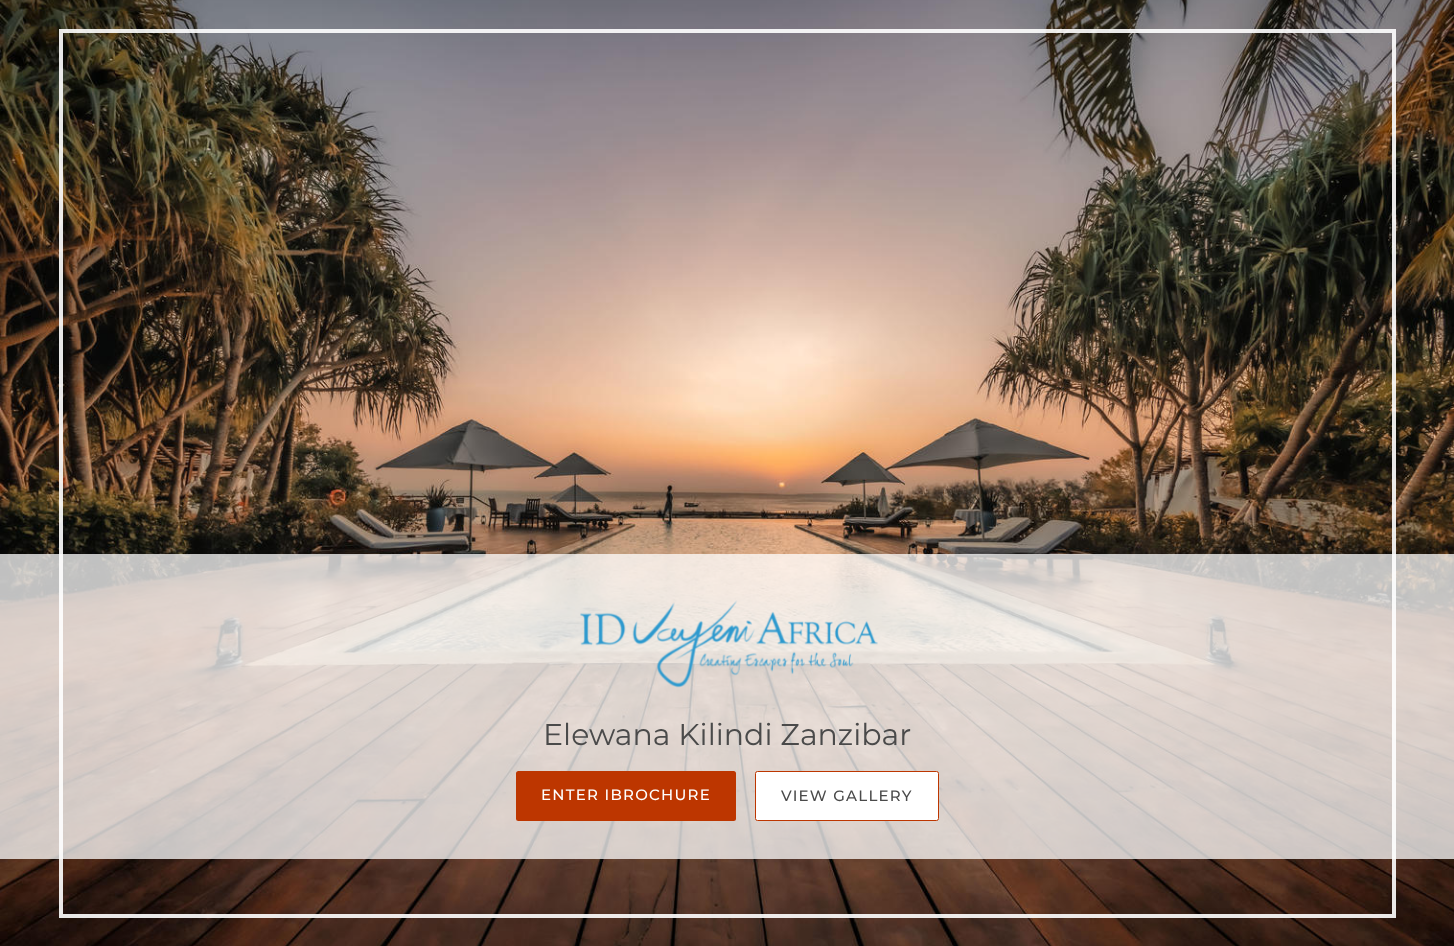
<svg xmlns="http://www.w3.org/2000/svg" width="1454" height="946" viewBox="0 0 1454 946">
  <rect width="100%" height="100%" fill="rgb(255,255,255)"/>
  <image x="0" y="0" width="1454" height="946" href="pic1.png"/>
  <rect x="61" y="31" width="1333" height="885" fill="none" stroke="rgba(255,255,255,0.9)" stroke-width="4"/>
  <rect x="0" y="554" width="1454" height="305" fill="rgba(255,255,255,0.75)"/>
  <image x="580" y="600" width="298" height="88" href="pic2.png"/>
  <text x="543" y="745" font-family="Montserrat" font-size="30" fill="rgb(74,74,74)">Elewana Kilindi Zanzibar</text>
  <rect x="516" y="771" width="220" height="50" rx="2.5" fill="rgb(189,54,0)"/>
  <text x="541" y="800" font-family="Montserrat" font-size="15" font-weight="500" letter-spacing="1.25" fill="rgb(255,255,255)">ENTER IBROCHURE</text>
  <rect x="755.5" y="771.5" width="183" height="49" rx="2" fill="rgb(255,255,255)" stroke="rgb(189,54,0)"/>
  <text x="781" y="801" font-family="Montserrat" font-size="15" font-weight="500" letter-spacing="1.25" fill="rgb(74,74,74)">VIEW GALLERY</text>
</svg>
